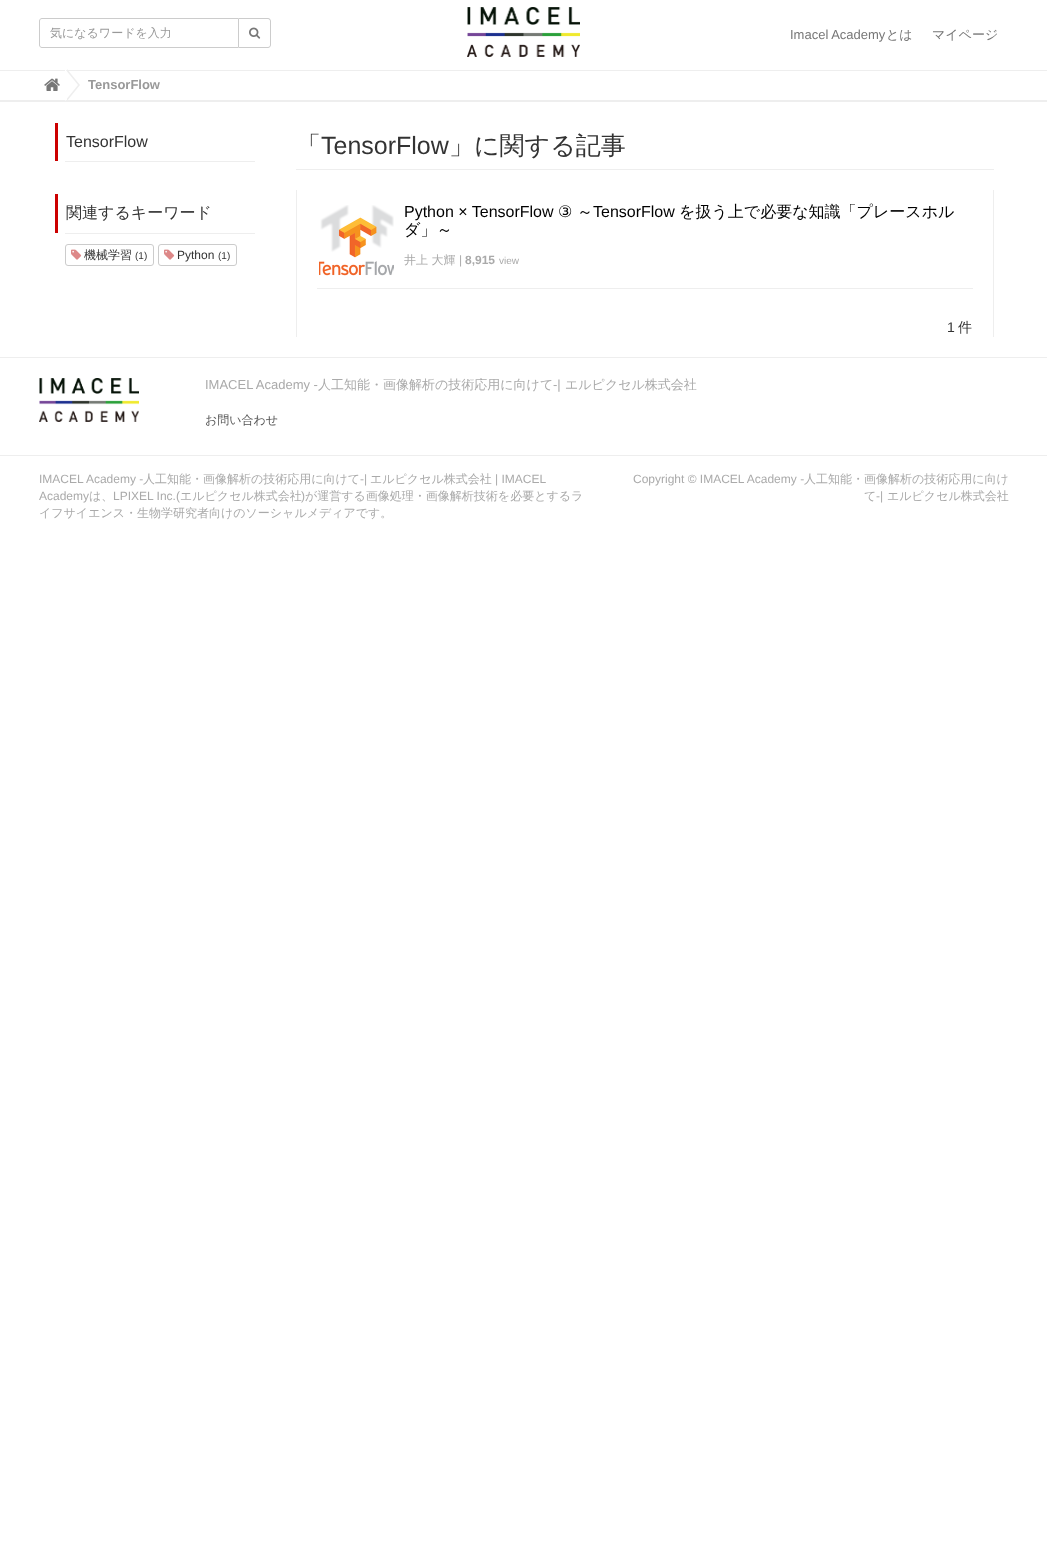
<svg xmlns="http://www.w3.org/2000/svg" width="1047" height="1542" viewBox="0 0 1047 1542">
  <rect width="100%" height="100%" fill="rgb(255,255,255)"/>
  <rect x="0" y="100" width="1047" height="2" fill="rgb(238,238,238)"/>
  <image x="467" y="7" width="113" height="50" href="pic1.png"/>
  <path d="M42 18.5H238.5V47.5H42C40.5 47.5 39.5 46.5 39.5 45V21C39.5 19.5 40.5 18.5 42 18.5Z" fill="none" stroke="rgb(204,204,204)"/>
  <text x="50" y="37" font-family="WenQuanYi Zen Hei" font-size="12" font-weight="500" fill="rgb(153,153,153)">気になるワードを入力</text>
  <path d="M239 18H268C269.5 18 271 19.5 271 21V45C271 46.5 269.5 48 268 48H239ZM239 19H268C269 19 270 20 270 21V45C270 46 269 47 268 47H239Z" fill="rgb(204,204,204)" fill-rule="evenodd"/>
  <image x="249" y="27" width="12" height="12" href="pic2.png"/>
  <text x="790" y="39" font-family="Liberation Sans" font-size="13" fill="rgb(119,119,119)">Imacel Academy</text>
  <g font-family="WenQuanYi Zen Hei" font-size="13" font-weight="500" fill="rgb(119,119,119)">
    <text x="886" y="39">とは</text>
    <text x="932" y="39">マイページ</text>
  </g>
  <rect x="0" y="70" width="1047" height="1" fill="rgb(238,238,238)"/>
  <path d="M67 101V69L80 85Z" fill="rgb(238,238,238)"/>
  <path d="M65 101V69L78 85Z" fill="rgb(255,255,255)"/>
  <image x="44" y="78" width="16" height="13" href="pic3.png"/>
  <text x="88" y="89" font-family="Liberation Sans" font-size="13" font-weight="bold" fill="rgb(153,153,153)">TensorFlow</text>
  <rect x="55" y="123" width="3" height="38" fill="rgb(204,0,0)"/>
  <text x="66" y="147" font-family="Liberation Sans" font-size="16" fill="rgb(51,51,51)">TensorFlow</text>
  <rect x="65" y="161" width="190" height="1" fill="rgb(238,238,238)"/>
  <rect x="55" y="194" width="3" height="39" fill="rgb(204,0,0)"/>
  <text x="66" y="218" font-family="WenQuanYi Zen Hei" font-size="16" font-weight="500" fill="rgb(51,51,51)">関連するキーワード</text>
  <rect x="65" y="233" width="190" height="1" fill="rgb(238,238,238)"/>
  <rect x="65.5" y="244.5" width="88" height="21" rx="2.5" fill="none" stroke="rgb(204,204,204)"/>
  <image x="71" y="249" width="11" height="11" href="pic4.png"/>
  <text x="84" y="259" font-family="WenQuanYi Zen Hei" font-size="12" font-weight="500" fill="rgb(51,51,51)">機械学習</text>
  <text x="135" y="259" font-family="Liberation Sans" font-size="10" fill="rgb(51,51,51)">(1)</text>
  <rect x="158.5" y="244.5" width="78" height="21" rx="2.5" fill="none" stroke="rgb(204,204,204)"/>
  <image x="164" y="249" width="11" height="11" href="pic4.png"/>
  <text x="177" y="259" font-family="Liberation Sans" font-size="12" fill="rgb(51,51,51)">Python</text>
  <text x="218" y="259" font-family="Liberation Sans" font-size="10" fill="rgb(51,51,51)">(1)</text>
  <rect x="296" y="169" width="698" height="1" fill="rgb(238,238,238)"/>
  <text x="296" y="154" font-family="WenQuanYi Zen Hei" font-size="25" font-weight="500" fill="rgb(51,51,51)">「</text>
  <text x="321" y="154" font-family="Liberation Sans" font-size="25" fill="rgb(51,51,51)">TensorFlow</text>
  <text x="449" y="154" font-family="WenQuanYi Zen Hei" font-size="25" font-weight="500" fill="rgb(51,51,51)">」に関する記事</text>
  <rect x="993" y="190" width="1" height="147" fill="rgb(238,238,238)"/>
  <rect x="296" y="190" width="1" height="147" fill="rgb(238,238,238)"/>
  <rect x="317" y="288" width="656" height="1" fill="rgb(238,238,238)"/>
  <image x="319" y="205" width="75" height="71" href="pic5.png"/>
  <text x="404" y="217" font-family="Liberation Sans" font-size="16" fill="rgb(0,0,0)">Python × TensorFlow</text>
  <text x="558" y="217" font-family="DejaVu Sans" font-size="16" fill="rgb(0,0,0)">③</text>
  <text x="577" y="217" font-family="WenQuanYi Zen Hei" font-size="16" font-weight="500" fill="rgb(0,0,0)">～</text>
  <text x="593" y="217" font-family="Liberation Sans" font-size="16" fill="rgb(0,0,0)">TensorFlow</text>
  <g font-family="WenQuanYi Zen Hei" font-size="16" font-weight="500" fill="rgb(0,0,0)">
    <text x="679" y="217">を扱う上で必要な知識「プレースホル</text>
    <text x="404" y="235">ダ」～</text>
  </g>
  <text x="404" y="264" font-family="WenQuanYi Zen Hei" font-size="12" font-weight="500" fill="rgb(170,170,170)">井上 大輝</text>
  <text x="459" y="264" font-family="Liberation Sans" font-size="12" fill="rgb(170,170,170)">|</text>
  <text x="465" y="264" font-family="Liberation Sans" font-size="12" font-weight="bold" fill="rgb(170,170,170)">8,915</text>
  <text x="499" y="264" font-family="Liberation Sans" font-size="10" fill="rgb(170,170,170)">view</text>
  <text x="947" y="332" font-family="Liberation Sans" font-size="14" fill="rgb(51,51,51)">1</text>
  <text x="958" y="332" font-family="WenQuanYi Zen Hei" font-size="14" font-weight="500" fill="rgb(51,51,51)">件</text>
  <rect x="0" y="357" width="1047" height="1" fill="rgb(238,238,238)"/>
  <image x="39" y="378" width="100" height="44" href="pic6.png"/>
  <text x="205" y="389" font-family="Liberation Sans" font-size="13" fill="rgb(170,170,170)">IMACEL Academy -</text>
  <text x="318" y="389" font-family="WenQuanYi Zen Hei" font-size="13" font-weight="500" fill="rgb(170,170,170)">人工知能・画像解析の技術応用に向けて</text>
  <text x="553" y="389" font-family="Liberation Sans" font-size="13" fill="rgb(170,170,170)">-|</text>
  <text x="565" y="389" font-family="WenQuanYi Zen Hei" font-size="13" font-weight="500" fill="rgb(170,170,170)">エルピクセル株式会社</text>
  <text x="205" y="424" font-family="WenQuanYi Zen Hei" font-size="12" font-weight="500" fill="rgb(85,85,85)">お問い合わせ</text>
  <rect x="0" y="455" width="1047" height="1" fill="rgb(238,238,238)"/>
  <text x="39" y="483" font-family="Liberation Sans" font-size="12" fill="rgb(170,170,170)">IMACEL Academy -</text>
  <text x="143" y="483" font-family="WenQuanYi Zen Hei" font-size="12" font-weight="500" fill="rgb(170,170,170)">人工知能・画像解析の技術応用に向けて</text>
  <text x="360" y="483" font-family="Liberation Sans" font-size="12" fill="rgb(170,170,170)">-|</text>
  <text x="370" y="483" font-family="WenQuanYi Zen Hei" font-size="12" font-weight="500" fill="rgb(170,170,170)">エルピクセル株式会社</text>
  <g font-family="Liberation Sans" font-size="12" fill="rgb(170,170,170)">
    <text x="495" y="483">| IMACEL</text>
    <text x="39" y="500">Academy</text>
  </g>
  <text x="89" y="500" font-family="WenQuanYi Zen Hei" font-size="12" font-weight="500" fill="rgb(170,170,170)">は、</text>
  <text x="113" y="500" font-family="Liberation Sans" font-size="12" fill="rgb(170,170,170)">LPIXEL Inc.(</text>
  <text x="180" y="500" font-family="WenQuanYi Zen Hei" font-size="12" font-weight="500" fill="rgb(170,170,170)">エルピクセル株式会社</text>
  <text x="301" y="500" font-family="Liberation Sans" font-size="12" fill="rgb(170,170,170)">)</text>
  <g font-family="WenQuanYi Zen Hei" font-size="12" font-weight="500" fill="rgb(170,170,170)">
    <text x="305" y="500">が運営する画像処理・画像解析技術を必要とするラ</text>
    <text x="39" y="517">イフサイエンス・生物学研究者向けのソーシャルメディアです。</text>
  </g>
  <text x="633" y="483" font-family="Liberation Sans" font-size="12" fill="rgb(170,170,170)">Copyright © IMACEL Academy -</text>
  <g font-family="WenQuanYi Zen Hei" font-size="12" font-weight="500" fill="rgb(170,170,170)">
    <text x="804" y="483">人工知能・画像解析の技術応用に向け</text>
    <text x="864" y="500">て</text>
  </g>
  <text x="876" y="500" font-family="Liberation Sans" font-size="12" fill="rgb(170,170,170)">-|</text>
  <text x="887" y="500" font-family="WenQuanYi Zen Hei" font-size="12" font-weight="500" fill="rgb(170,170,170)">エルピクセル株式会社</text>
</svg>
